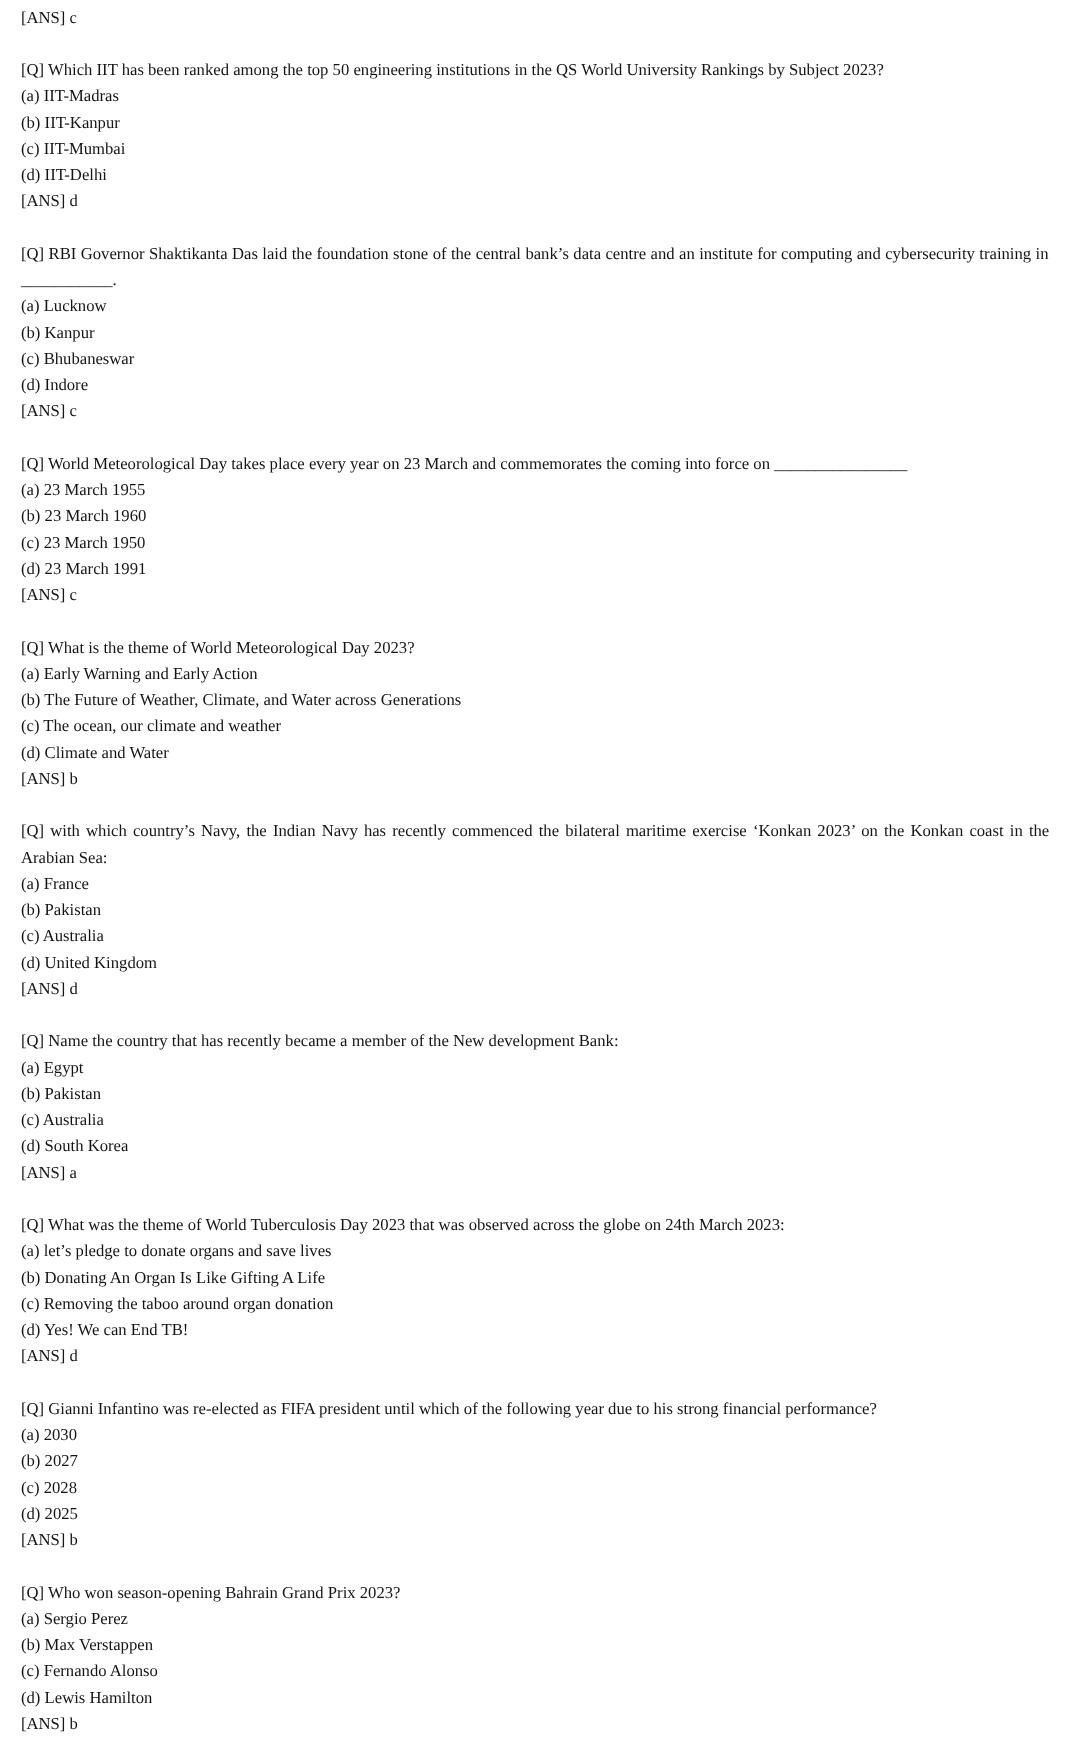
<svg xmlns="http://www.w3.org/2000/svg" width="1070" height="1740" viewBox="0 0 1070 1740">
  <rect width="100%" height="100%" fill="rgb(255,255,255)"/>
  <g font-family="Liberation Serif" font-size="16.67" fill="rgb(21,21,21)">
    <text x="21" y="23">[ANS] c</text>
    <text>
      <tspan x="21" y="75">[Q] Which IIT has been ranked among the top 50 engineering institutions in the QS World University Rankings by Subject 2023?</tspan>
      <tspan x="21" y="101">(a) IIT-Madras</tspan>
      <tspan x="21" y="128">(b) IIT-Kanpur</tspan>
      <tspan x="21" y="154">(c) IIT-Mumbai</tspan>
      <tspan x="21" y="180">(d) IIT-Delhi</tspan>
      <tspan x="21" y="206">[ANS] d</tspan>
    </text>
    <text>
      <tspan x="21" y="259" word-spacing="0.25">[Q] RBI Governor Shaktikanta Das laid the foundation stone of the central bank’s data centre and an institute for computing and cybersecurity training in</tspan>
      <tspan x="21" y="285">___________.</tspan>
      <tspan x="21" y="311">(a) Lucknow</tspan>
      <tspan x="21" y="338">(b) Kanpur</tspan>
      <tspan x="21" y="364">(c) Bhubaneswar</tspan>
      <tspan x="21" y="390">(d) Indore</tspan>
      <tspan x="21" y="416">[ANS] c</tspan>
    </text>
    <text>
      <tspan x="21" y="469">[Q] World Meteorological Day takes place every year on 23 March and commemorates the coming into force on ________________</tspan>
      <tspan x="21" y="495">(a) 23 March 1955</tspan>
      <tspan x="21" y="521">(b) 23 March 1960</tspan>
      <tspan x="21" y="548">(c) 23 March 1950</tspan>
      <tspan x="21" y="574">(d) 23 March 1991</tspan>
      <tspan x="21" y="600">[ANS] c</tspan>
    </text>
    <text>
      <tspan x="21" y="653">[Q] What is the theme of World Meteorological Day 2023?</tspan>
      <tspan x="21" y="679">(a) Early Warning and Early Action</tspan>
      <tspan x="21" y="705">(b) The Future of Weather, Climate, and Water across Generations</tspan>
      <tspan x="21" y="731">(c) The ocean, our climate and weather</tspan>
      <tspan x="21" y="758">(d) Climate and Water</tspan>
      <tspan x="21" y="784">[ANS] b</tspan>
    </text>
    <text>
      <tspan x="21" y="836" word-spacing="2">[Q] with which country’s Navy, the Indian Navy has recently commenced the bilateral maritime exercise ‘Konkan 2023’ on the Konkan coast in the</tspan>
      <tspan x="21" y="863">Arabian Sea:</tspan>
      <tspan x="21" y="889">(a) France</tspan>
      <tspan x="21" y="915">(b) Pakistan</tspan>
      <tspan x="21" y="941">(c) Australia</tspan>
      <tspan x="21" y="968">(d) United Kingdom</tspan>
      <tspan x="21" y="994">[ANS] d</tspan>
    </text>
    <text>
      <tspan x="21" y="1046">[Q] Name the country that has recently became a member of the New development Bank:</tspan>
      <tspan x="21" y="1073">(a) Egypt</tspan>
      <tspan x="21" y="1099">(b) Pakistan</tspan>
      <tspan x="21" y="1125">(c) Australia</tspan>
      <tspan x="21" y="1151">(d) South Korea</tspan>
      <tspan x="21" y="1178">[ANS] a</tspan>
    </text>
    <text>
      <tspan x="21" y="1230">[Q] What was the theme of World Tuberculosis Day 2023 that was observed across the globe on 24th March 2023:</tspan>
      <tspan x="21" y="1256">(a) let’s pledge to donate organs and save lives</tspan>
      <tspan x="21" y="1283">(b) Donating An Organ Is Like Gifting A Life</tspan>
      <tspan x="21" y="1309">(c) Removing the taboo around organ donation</tspan>
      <tspan x="21" y="1335">(d) Yes! We can End TB!</tspan>
      <tspan x="21" y="1361">[ANS] d</tspan>
    </text>
    <text>
      <tspan x="21" y="1414">[Q] Gianni Infantino was re-elected as FIFA president until which of the following year due to his strong financial performance?</tspan>
      <tspan x="21" y="1440">(a) 2030</tspan>
      <tspan x="21" y="1466">(b) 2027</tspan>
      <tspan x="21" y="1493">(c) 2028</tspan>
      <tspan x="21" y="1519">(d) 2025</tspan>
      <tspan x="21" y="1545">[ANS] b</tspan>
    </text>
    <text>
      <tspan x="21" y="1598">[Q] Who won season-opening Bahrain Grand Prix 2023?</tspan>
      <tspan x="21" y="1624">(a) Sergio Perez</tspan>
      <tspan x="21" y="1650">(b) Max Verstappen</tspan>
      <tspan x="21" y="1676">(c) Fernando Alonso</tspan>
      <tspan x="21" y="1703">(d) Lewis Hamilton</tspan>
      <tspan x="21" y="1729">[ANS] b</tspan>
    </text>
  </g>
</svg>
